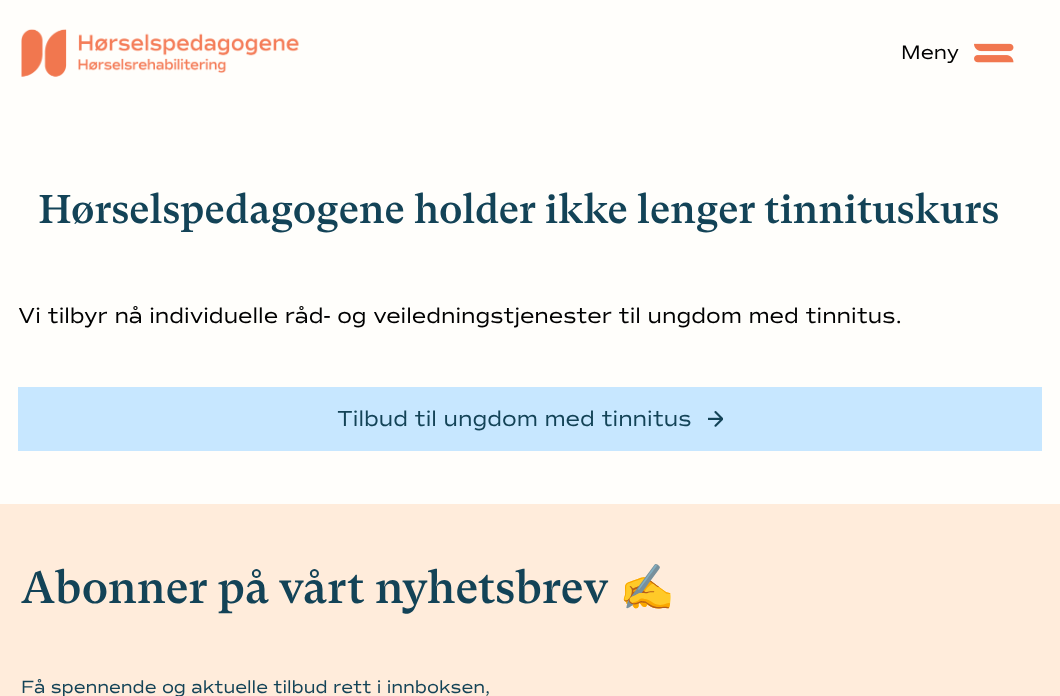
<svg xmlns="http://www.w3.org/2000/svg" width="1060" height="696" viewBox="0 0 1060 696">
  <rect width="100%" height="100%" fill="rgb(255,254,251)"/>
  <image x="21" y="29" width="278" height="48" href="pic1.png"/>
  <text x="901" y="59" font-family="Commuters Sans" font-size="20" fill="rgb(0,0,0)">Meny</text>
  <image x="974" y="43" width="40" height="20" href="pic2.png"/>
  <text x="38" y="223" font-family="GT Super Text" font-size="40" font-weight="500" fill="rgb(19,67,87)">Hørselspedagogene holder ikke lenger tinnituskurs</text>
  <text x="18" y="323" font-family="Commuters Sans" font-size="22" fill="rgb(0,0,0)">Vi tilbyr nå individuelle råd- og veiledningstjenester til ungdom med tinnitus.</text>
  <rect x="18" y="387" width="1024" height="64" fill="rgb(199,231,255)"/>
  <text x="337" y="426" font-family="Commuters Sans" font-size="22" fill="rgb(19,67,87)">Tilbud til ungdom med tinnitus</text>
  <image x="708" y="411" width="15" height="16" href="pic3.png"/>
  <rect x="0" y="504" width="1060" height="192" fill="rgb(255,236,219)"/>
  <text x="21" y="603" font-family="GT Super Text" font-size="45" font-weight="500" fill="rgb(19,67,87)">Abonner på vårt nyhetsbrev</text>
  <text x="619" y="603" font-family="Noto Color Emoji" font-size="45" fill="rgb(19,67,87)">✍️</text>
  <text x="21" y="693" font-family="Commuters Sans" font-size="18" fill="rgb(19,67,87)">Få spennende og aktuelle tilbud rett i innboksen,</text>
</svg>
